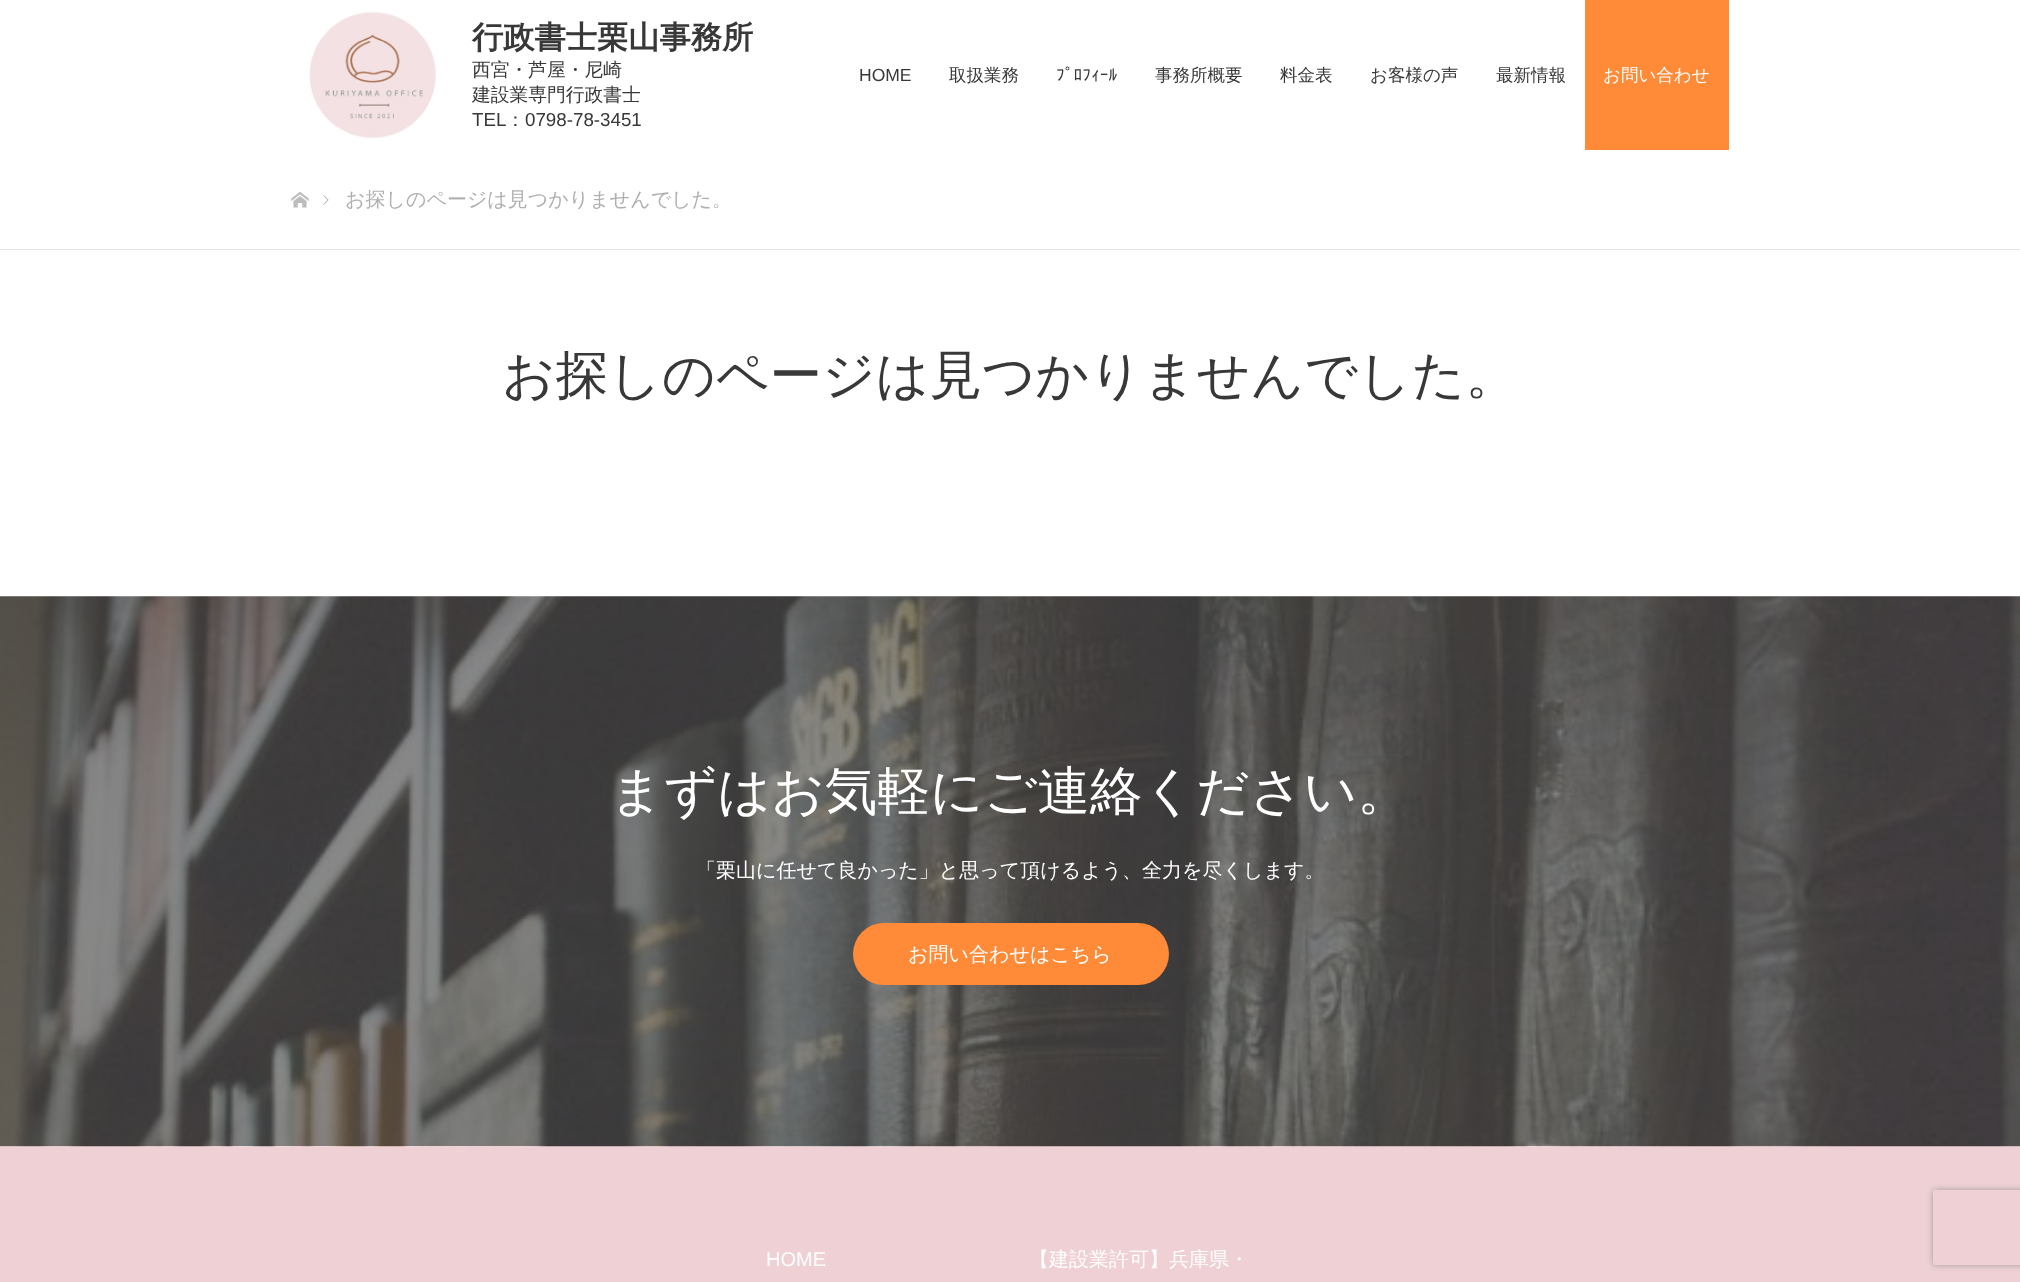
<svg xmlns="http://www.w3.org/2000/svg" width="2020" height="1282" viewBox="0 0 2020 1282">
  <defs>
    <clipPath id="clip1"><path d="M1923 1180H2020V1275H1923ZM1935.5 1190H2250.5C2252 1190 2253 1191 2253 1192.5V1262.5C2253 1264 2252 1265 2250.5 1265H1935.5C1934 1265 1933 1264 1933 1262.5V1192.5C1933 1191 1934 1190 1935.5 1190Z" clip-rule="evenodd"/></clipPath>
  </defs>
  <rect width="100%" height="100%" fill="rgb(255,255,255)"/>
  <image x="309" y="11" width="127" height="128" href="pic1.png"/>
  <text x="472" y="48" font-family="WenQuanYi Zen Hei" font-size="31.25" font-weight="bold" fill="rgb(56,56,56)">行政書士栗山事務所</text>
  <g font-family="WenQuanYi Zen Hei" font-size="18.75" font-weight="500" fill="rgb(56,56,56)">
    <text>
      <tspan x="472" y="76">西宮・芦屋・尼崎</tspan>
      <tspan x="472" y="101">建設業専門行政書士</tspan>
    </text>
  </g>
  <text x="472" y="126" font-family="Liberation Sans" font-size="18.75" fill="rgb(56,56,56)">TEL</text>
  <text x="506" y="126" font-family="WenQuanYi Zen Hei" font-size="18.75" font-weight="500" fill="rgb(56,56,56)">：</text>
  <text x="525" y="126" font-family="Liberation Sans" font-size="18.75" fill="rgb(56,56,56)">0798-78-3451</text>
  <text x="859" y="81" font-family="Liberation Sans" font-size="17.5" fill="rgb(56,56,56)">HOME</text>
  <text x="949" y="81" font-family="WenQuanYi Zen Hei" font-size="17.5" font-weight="500" fill="rgb(56,56,56)">取扱業務</text>
  <text x="1056" y="81" font-family="IPAPGothic" font-size="17.5" fill="rgb(56,56,56)">ﾌﾟﾛﾌｨｰﾙ</text>
  <g font-family="WenQuanYi Zen Hei" font-size="17.5" font-weight="500" fill="rgb(56,56,56)">
    <text x="1155" y="81">事務所概要</text>
    <text x="1280" y="81">料金表</text>
    <text x="1370" y="81">お客様の声</text>
    <text x="1496" y="81">最新情報</text>
  </g>
  <rect x="1585" y="0" width="144" height="150" fill="rgb(255,138,56)"/>
  <text x="1603" y="81" font-family="WenQuanYi Zen Hei" font-size="17.5" font-weight="500" fill="rgb(255,255,255)">お問い合わせ</text>
  <rect x="0" y="249" width="2020" height="1" fill="rgb(228,228,228)"/>
  <image x="291" y="191" width="18" height="17" href="pic2.png"/>
  <image x="323" y="195" width="6" height="10" href="pic3.png"/>
  <text x="345" y="206" font-family="WenQuanYi Zen Hei" font-size="20" font-weight="500" fill="rgb(175,175,175)">お探しのページは見つかりませんでした。</text>
  <text x="502" y="393" font-family="WenQuanYi Zen Hei" font-size="52.5" font-weight="500" fill="rgb(56,56,56)">お探しのページは見つかりませんでした。</text>
  <rect x="0" y="1146" width="2020" height="136" fill="rgb(239,209,213)"/>
  <image x="0" y="596" width="2020" height="551" href="pic4.png"/>
  <text x="610" y="809" font-family="WenQuanYi Zen Hei" font-size="52.5" font-weight="500" fill="rgb(255,255,255)">まずはお気軽にご連絡ください。</text>
  <text x="696" y="877" font-family="WenQuanYi Zen Hei" font-size="20" font-weight="500" fill="rgb(255,255,255)">「栗山に任せて良かった」と思って頂けるよう、全力を尽くします。</text>
  <rect x="853" y="923" width="316" height="62" rx="31" fill="rgb(255,138,56)"/>
  <text x="908" y="961" font-family="WenQuanYi Zen Hei" font-size="20" font-weight="500" fill="rgb(255,255,255)">お問い合わせはこちら</text>
  <text x="766" y="1266" font-family="Liberation Sans" font-size="20" fill="rgb(255,255,255)">HOME</text>
  <text x="1029" y="1266" font-family="WenQuanYi Zen Hei" font-size="20" font-weight="500" fill="rgb(255,255,255)">【建設業許可】兵庫県・</text>
  <g clip-path="url(#clip1)">
    <rect x="1933" y="1190" width="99" height="75" rx="2.5" fill="rgb(156,156,156)" filter="blur(3px)"/>
  </g>
</svg>
